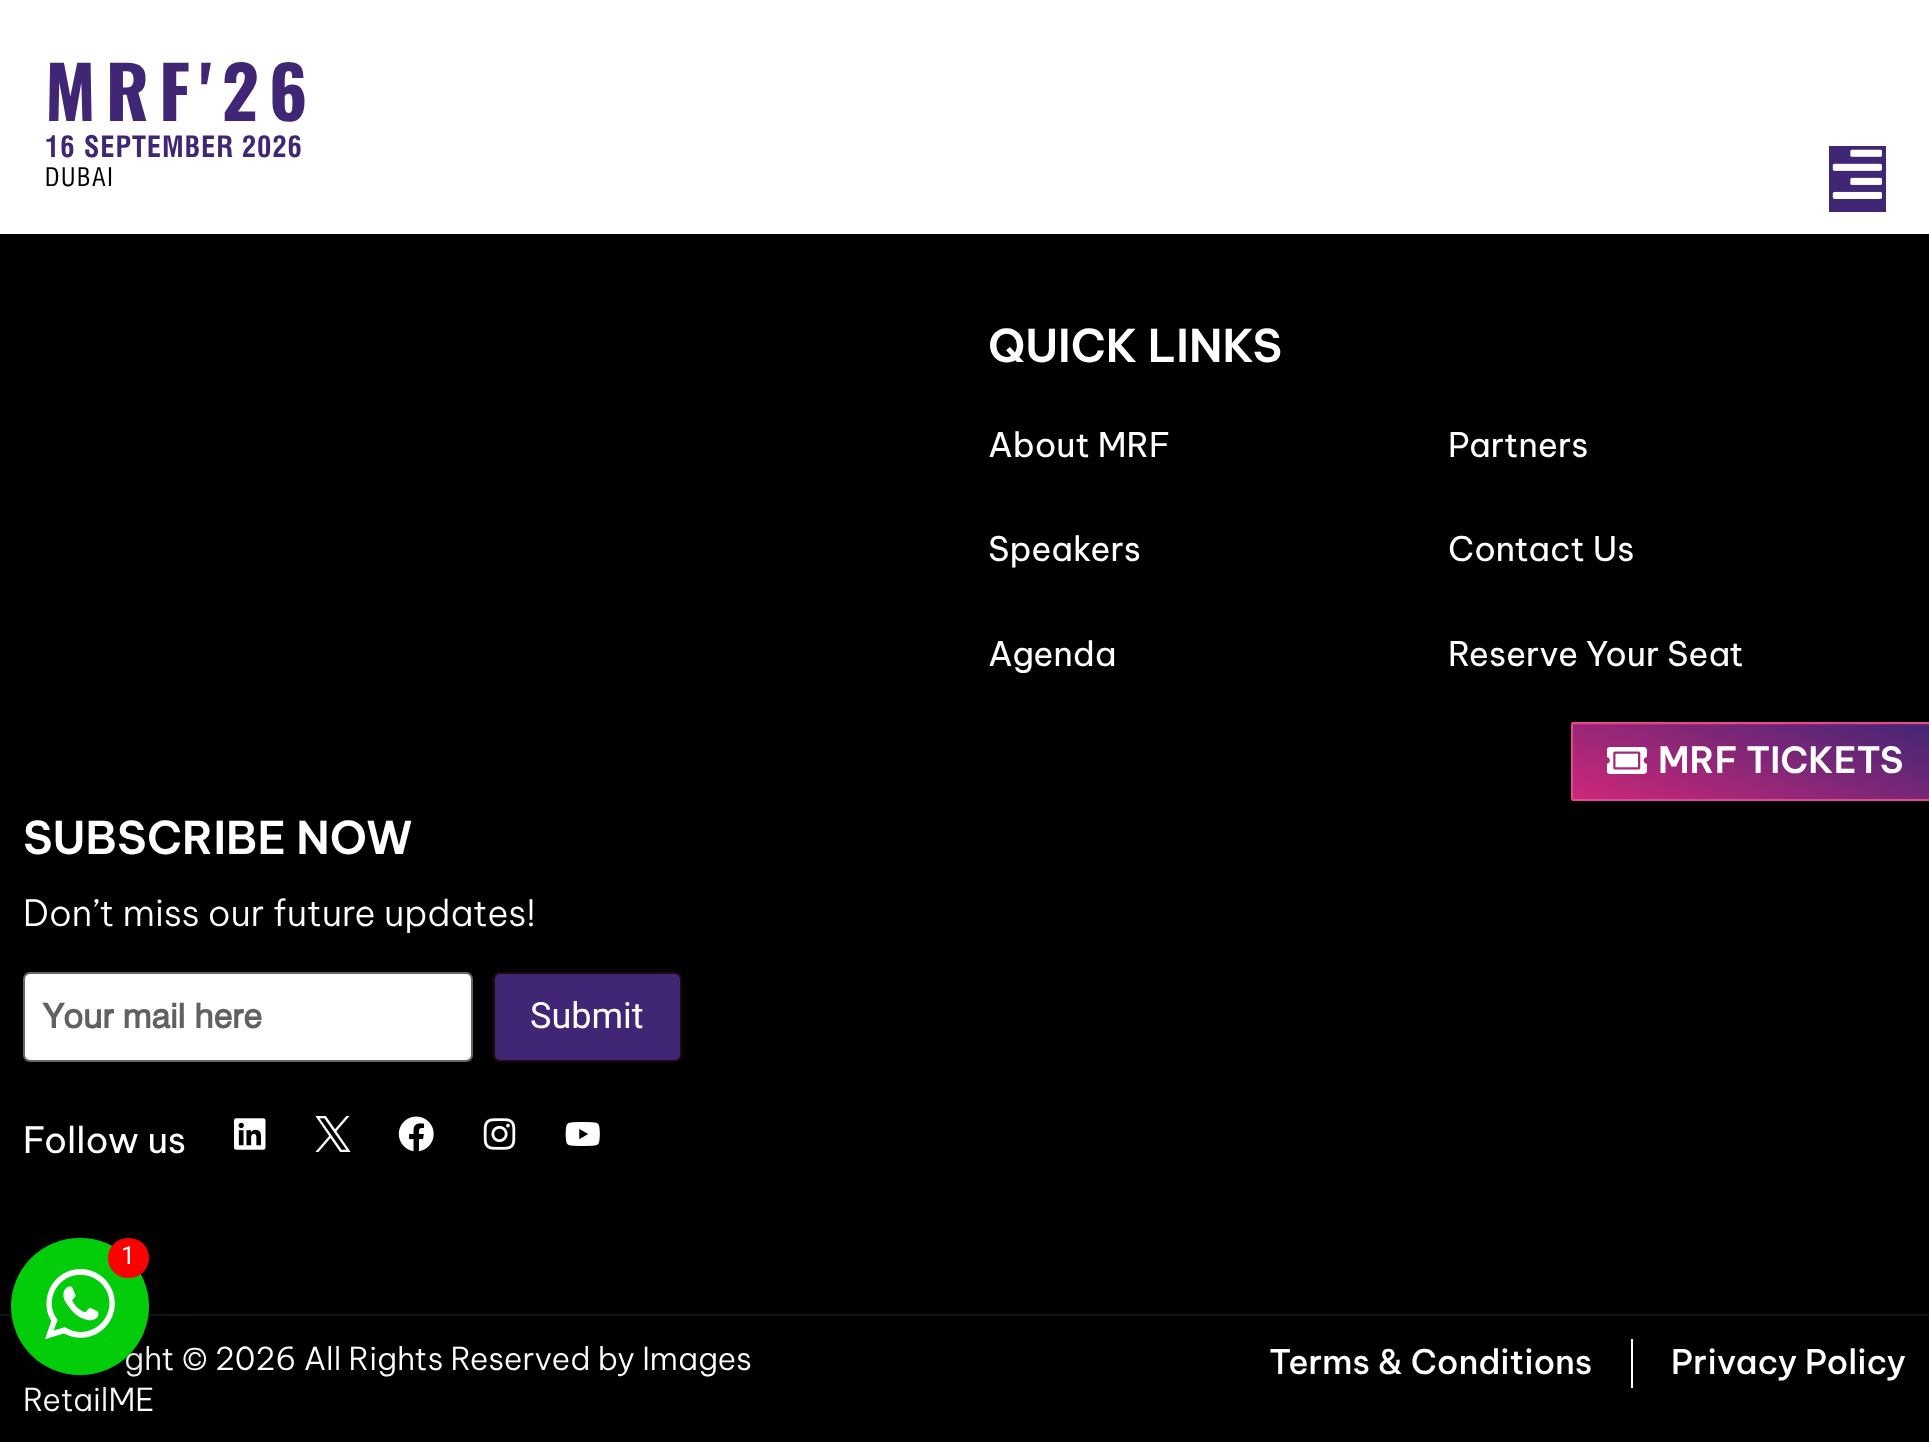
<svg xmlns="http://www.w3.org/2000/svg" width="1929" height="1442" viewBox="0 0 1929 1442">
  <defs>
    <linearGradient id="g1" gradientUnits="userSpaceOnUse" x1="1786" y1="598" x2="1724" y2="777"><stop offset="0" stop-color="rgb(65,38,117)"/><stop offset="1" stop-color="rgb(206,39,121)"/></linearGradient>
    <linearGradient id="g2" gradientUnits="userSpaceOnUse" x1="1786" y1="672" x2="1724" y2="851"><stop offset="0" stop-color="rgb(65,38,117)"/><stop offset="1" stop-color="rgb(206,39,121)"/></linearGradient>
  </defs>
  <rect width="100%" height="100%" fill="rgb(0,0,0)"/>
  <rect x="0" y="0" width="1929" height="234" fill="rgb(255,255,255)"/>
  <text x="45" y="121" font-family="Oswald" font-size="72" font-weight="bold" letter-spacing="10" fill="rgb(65,38,117)">MRF'26</text>
  <text x="45" y="157" font-family="'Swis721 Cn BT'" font-size="28.75" font-weight="bold" letter-spacing="0.9" fill="rgb(65,38,117)">16 SEPTEMBER 2026</text>
  <text x="45" y="186" font-family="'Swis721 Cn BT'" font-size="25" letter-spacing="1.5" fill="rgb(0,0,0)">DUBAI</text>
  <rect x="1829" y="146" width="57" height="66" fill="rgb(65,38,117)"/>
  <image x="1832" y="149" width="50" height="50" href="pic1.png"/>
  <text x="988" y="362" font-family="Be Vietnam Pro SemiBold" font-size="45" font-weight="600" fill="rgb(255,255,255)">QUICK LINKS</text>
  <g font-family="Be Vietnam Pro" font-size="33.75" fill="rgb(255,255,255)">
    <text x="988" y="457">About MRF</text>
    <text x="988" y="561">Speakers</text>
    <text x="988" y="666">Agenda</text>
    <text x="1448" y="457">Partners</text>
    <text x="1448" y="561">Contact Us</text>
    <text x="1448" y="666">Reserve Your Seat</text>
  </g>
  <rect x="1573" y="724" width="356" height="1" fill="url(#g1)"/>
  <rect x="1573" y="725" width="356" height="74" fill="url(#g2)"/>
  <rect x="1572" y="723" width="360" height="77" rx="1" fill="none" stroke="rgb(223,74,147)" stroke-width="2"/>
  <image x="1607" y="747" width="40" height="27" href="pic2.png"/>
  <text x="1658" y="773" font-family="Be Vietnam Pro SemiBold" font-size="36" font-weight="600" fill="rgb(255,255,255)">MRF TICKETS</text>
  <text x="23" y="854" font-family="Be Vietnam Pro SemiBold" font-size="45" font-weight="600" fill="rgb(255,255,255)">SUBSCRIBE NOW</text>
  <text x="23" y="926" font-family="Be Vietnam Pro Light" font-size="36" font-weight="300" fill="rgb(255,255,255)">Don’t miss our future updates!</text>
  <rect x="24" y="973" width="448" height="88" rx="6" fill="rgb(255,255,255)" stroke="rgb(102,102,102)" stroke-width="2"/>
  <text x="43" y="1028" font-family="'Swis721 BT'" font-size="33.75" font-weight="bold" fill="rgb(97,97,97)">Your mail here</text>
  <rect x="494" y="973" width="187" height="88" rx="6" fill="rgb(65,38,117)" stroke="rgb(33,6,21)" stroke-width="2"/>
  <text x="530" y="1028" font-family="Roboto" font-size="36" fill="rgb(255,255,255)">Submit</text>
  <text x="23" y="1153" font-family="Be Vietnam Pro" font-size="36" fill="rgb(255,255,255)">Follow us</text>
  <image x="234" y="1118" width="32" height="32" href="pic3.png"/>
  <image x="315" y="1116" width="36" height="36" href="pic4.png"/>
  <image x="398" y="1116" width="36" height="36" href="pic5.png"/>
  <image x="483" y="1118" width="33" height="32" href="pic6.png"/>
  <image x="565" y="1122" width="35" height="24" href="pic7.png"/>
  <rect x="0" y="1314" width="1929" height="2" fill="rgb(20,20,20)"/>
  <g font-family="Be Vietnam Pro Light" font-size="31.5" font-weight="300" fill="rgb(255,255,255)">
    <text x="124" y="1370">ght © 2026 All Rights Reserved by Images</text>
    <text x="23" y="1411">RetailME</text>
  </g>
  <text x="1269" y="1374" font-family="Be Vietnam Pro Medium" font-size="33.75" font-weight="500" fill="rgb(255,255,255)">Terms &amp; Conditions</text>
  <rect x="1631" y="1339" width="2" height="49" fill="rgb(255,255,255)"/>
  <text x="1671" y="1374" font-family="Be Vietnam Pro Medium" font-size="33.75" font-weight="500" fill="rgb(255,255,255)">Privacy Policy</text>
  <rect x="11" y="1249" width="138" height="137" rx="68.5" fill="rgba(0,0,0,0.2)" filter="blur(22.5px)"/>
  <rect x="11" y="1238" width="138" height="137" rx="68.5" fill="rgb(3,204,11)"/>
  <image x="45" y="1269" width="70" height="70" href="pic8.png"/>
  <rect x="108" y="1238" width="41" height="40" rx="20" fill="rgb(255,0,0)"/>
  <text x="121" y="1264" font-family="Roboto" font-size="25" fill="rgb(255,255,255)">1</text>
</svg>
